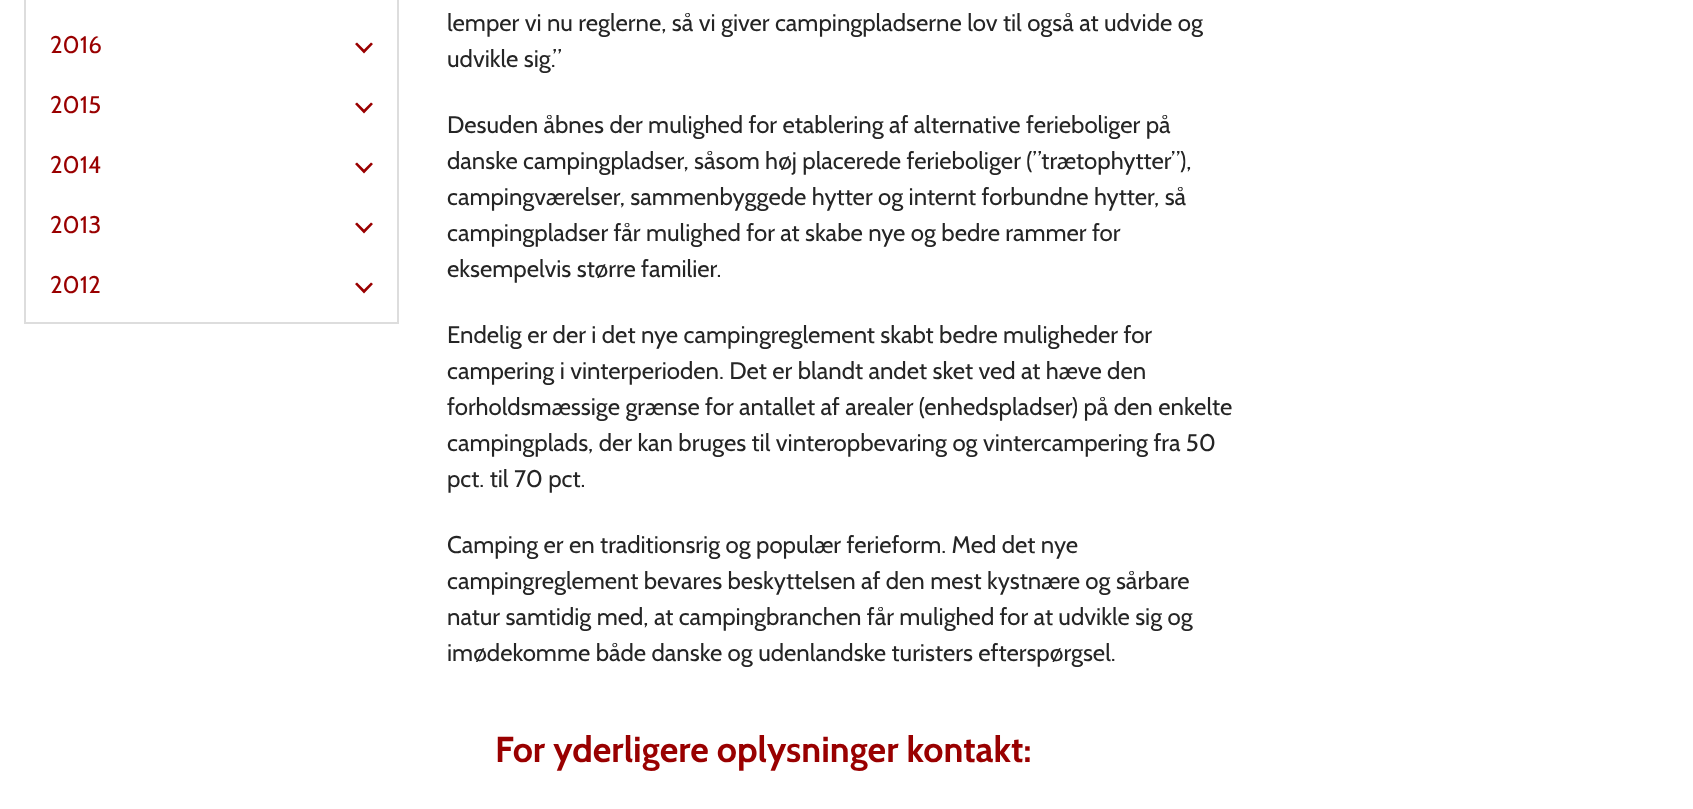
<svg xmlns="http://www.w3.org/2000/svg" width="1693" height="809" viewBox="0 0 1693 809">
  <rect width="100%" height="100%" fill="rgb(255,255,255)"/>
  <rect x="25" y="-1" width="373" height="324" fill="none" stroke="rgb(221,221,221)" stroke-width="2"/>
  <text x="50" y="53" font-family="Cabin" font-size="24" fill="rgb(153,0,0)">2016</text>
  <path d="M364 53.5L373 44L371 42.5L364 49.5L357 42.5L355 44Z" fill="rgb(153,0,0)"/>
  <text x="50" y="113" font-family="Cabin" font-size="24" fill="rgb(153,0,0)">2015</text>
  <path d="M364 113.5L373 104L371 102.5L364 109.5L357 102.5L355 104Z" fill="rgb(153,0,0)"/>
  <text x="50" y="173" font-family="Cabin" font-size="24" fill="rgb(153,0,0)">2014</text>
  <path d="M364 173.5L373 164L371 162.5L364 169.5L357 162.5L355 164Z" fill="rgb(153,0,0)"/>
  <text x="50" y="233" font-family="Cabin" font-size="24" fill="rgb(153,0,0)">2013</text>
  <path d="M364 233.5L373 224L371 222.5L364 229.5L357 222.5L355 224Z" fill="rgb(153,0,0)"/>
  <text x="50" y="293" font-family="Cabin" font-size="24" fill="rgb(153,0,0)">2012</text>
  <path d="M364 293.5L373 284L371 282.5L364 289.5L357 282.5L355 284Z" fill="rgb(153,0,0)"/>
  <g font-family="Cabin" font-size="24" fill="rgb(37,37,37)">
    <text>
      <tspan x="447" y="31">lemper vi nu reglerne, så vi giver campingpladserne lov til også at udvide og</tspan>
      <tspan x="447" y="67">udvikle sig.”</tspan>
    </text>
    <text>
      <tspan x="447" y="133">Desuden åbnes der mulighed for etablering af alternative ferieboliger på</tspan>
      <tspan x="447" y="169">danske campingpladser, såsom høj placerede ferieboliger (”trætophytter”),</tspan>
      <tspan x="447" y="205">campingværelser, sammenbyggede hytter og internt forbundne hytter, så</tspan>
      <tspan x="447" y="241">campingpladser får mulighed for at skabe nye og bedre rammer for</tspan>
      <tspan x="447" y="277">eksempelvis større familier.</tspan>
    </text>
    <text>
      <tspan x="447" y="343">Endelig er der i det nye campingreglement skabt bedre muligheder for</tspan>
      <tspan x="447" y="379">campering i vinterperioden. Det er blandt andet sket ved at hæve den</tspan>
      <tspan x="447" y="415">forholdsmæssige grænse for antallet af arealer (enhedspladser) på den enkelte</tspan>
      <tspan x="447" y="451">campingplads, der kan bruges til vinteropbevaring og vintercampering fra 50</tspan>
      <tspan x="447" y="487">pct. til 70 pct.</tspan>
    </text>
    <text>
      <tspan x="447" y="553">Camping er en traditionsrig og populær ferieform. Med det nye</tspan>
      <tspan x="447" y="589">campingreglement bevares beskyttelsen af den mest kystnære og sårbare</tspan>
      <tspan x="447" y="625">natur samtidig med, at campingbranchen får mulighed for at udvikle sig og</tspan>
      <tspan x="447" y="661">imødekomme både danske og udenlandske turisters efterspørgsel.</tspan>
    </text>
  </g>
  <text x="495" y="762" font-family="Cabin" font-size="36" font-weight="bold" fill="rgb(153,0,0)">For yderligere oplysninger kontakt:</text>
</svg>
